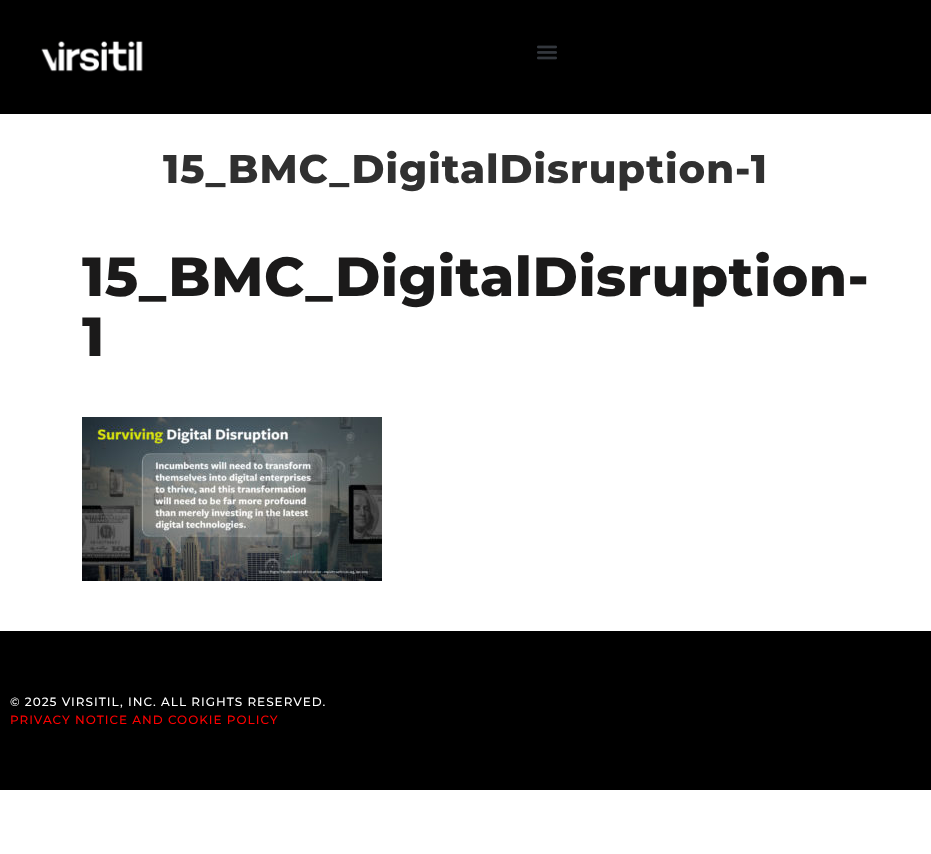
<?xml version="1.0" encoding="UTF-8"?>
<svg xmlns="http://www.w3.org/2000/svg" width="931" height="854">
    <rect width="100%" height="100%" fill="#FFFFFF"/>
    <rect x="0" y="0" width="931" height="114" fill="#000000"/>
    <image x="41" y="40" width="102" height="32" href="img_01.png"/>
    <image x="537" y="45" width="20" height="15" href="img_02.png"/>
    <text x="163" y="183" font-family="Montserrat" font-size="40" font-weight="800" letter-spacing="1" fill="#303030">15_BMC_DigitalDisruption-1</text>
    <text font-family="Montserrat" font-size="55" font-weight="800" letter-spacing="0.5" fill="#1B1A1A">
        <tspan x="82" y="296">15_BMC_DigitalDisruption-</tspan>
        <tspan x="82" y="356">1</tspan>
    </text>
    <image x="82" y="417" width="300" height="164" href="img_03.png"/>
    <rect x="0" y="631" width="931" height="159" fill="#000000"/>
    <text x="10" y="706" font-family="Montserrat" font-size="12" font-weight="500" letter-spacing="1" fill="#FFFFFF">© 2025 VIRSITIL, INC. ALL RIGHTS RESERVED.</text>
    <text x="10" y="724" font-family="Montserrat" font-size="12" font-weight="500" letter-spacing="1" fill="#FF0000">PRIVACY NOTICE AND COOKIE POLICY</text>
</svg>
